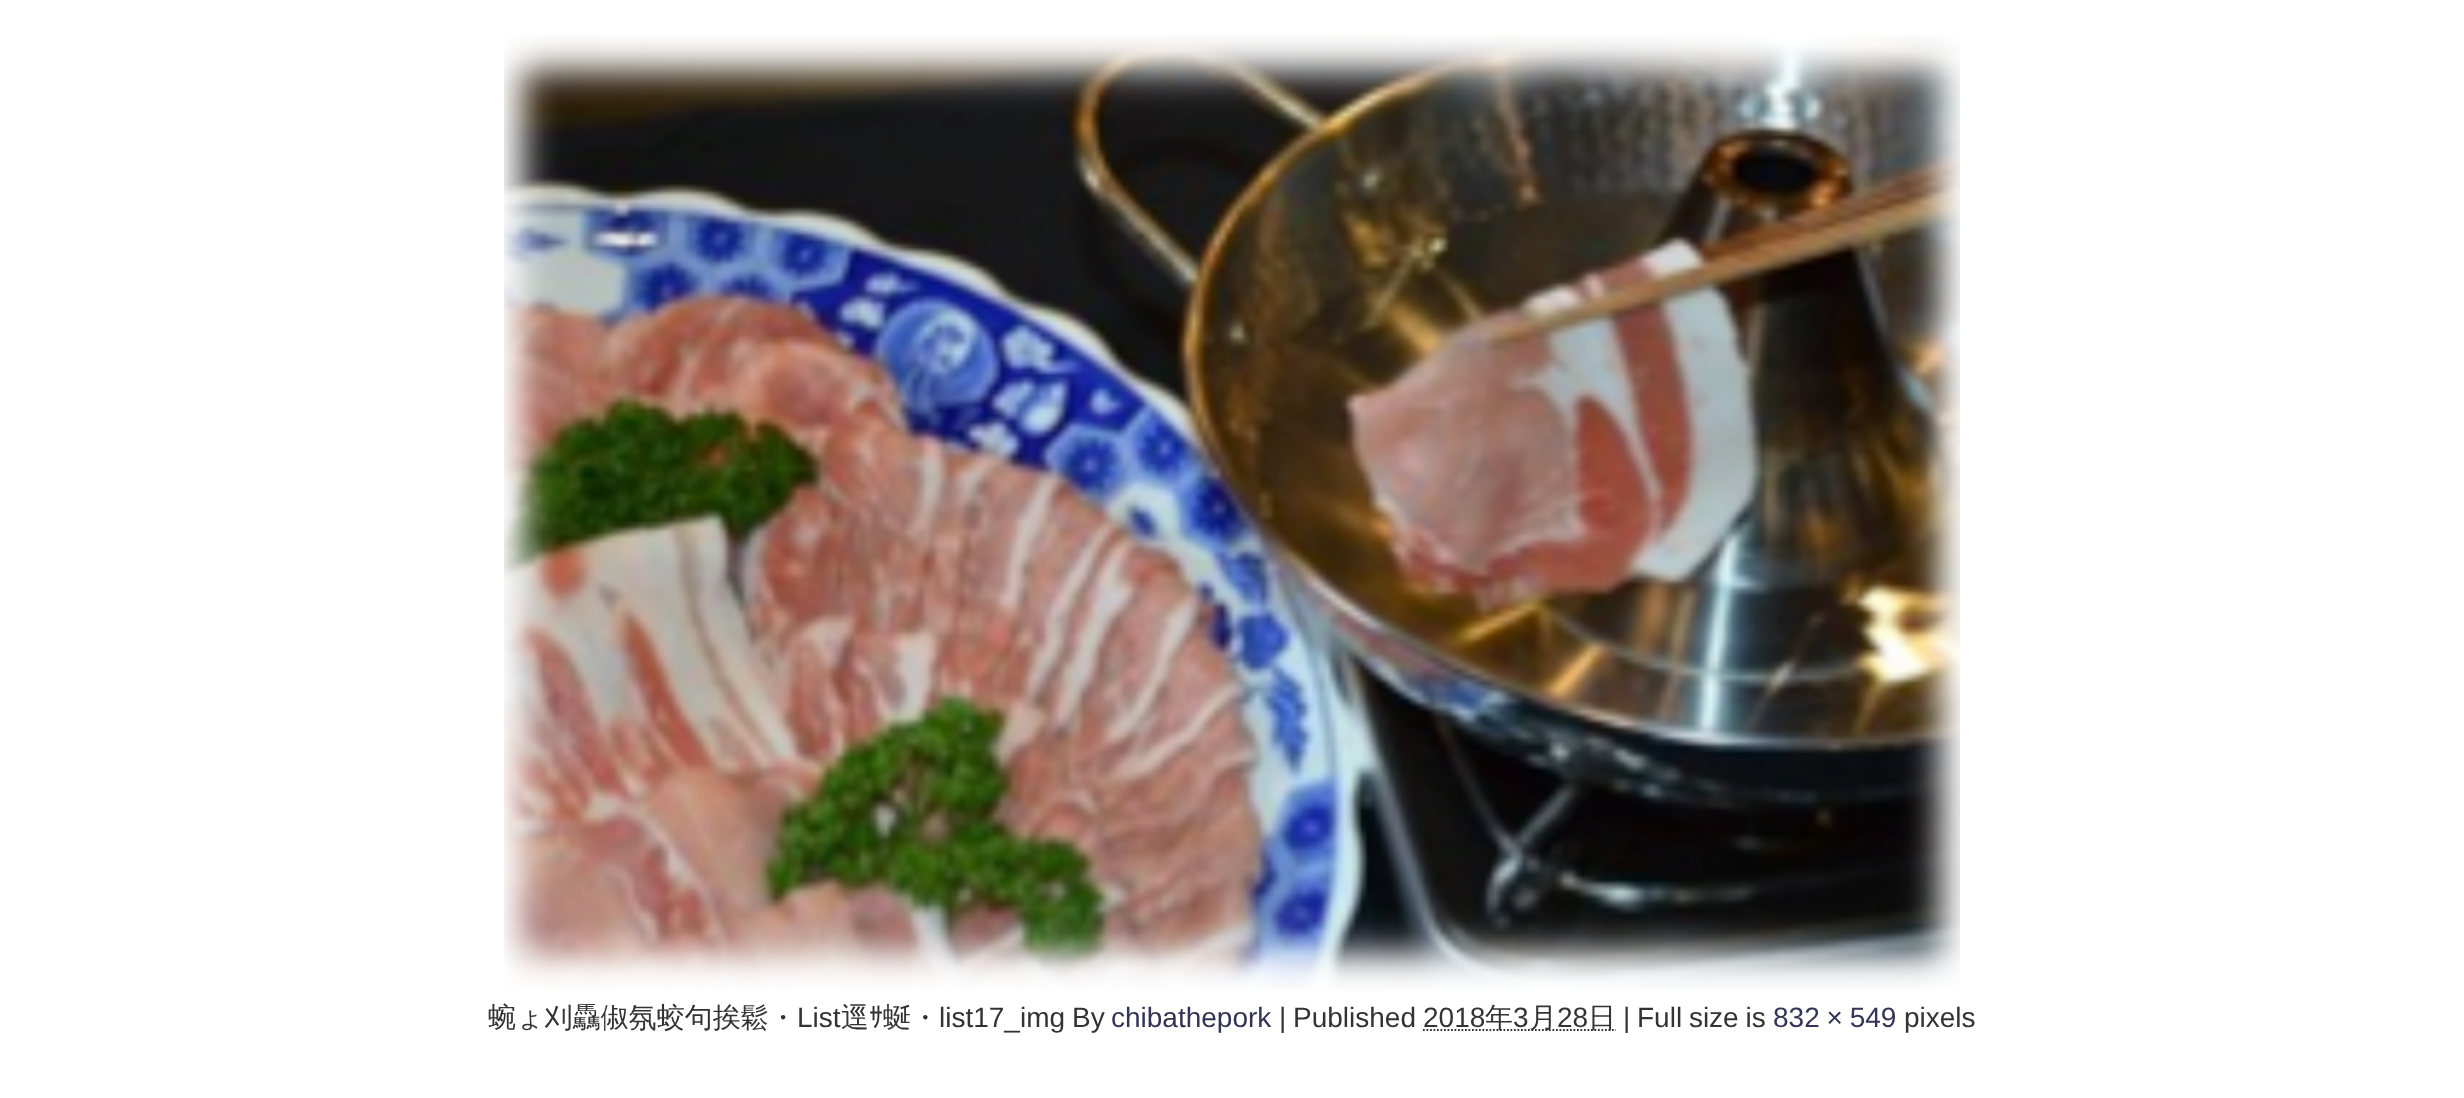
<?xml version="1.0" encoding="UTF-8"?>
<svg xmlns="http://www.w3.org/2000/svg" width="2464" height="1098">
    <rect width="100%" height="100%" fill="#FFFFFF"/>
    <image x="504" y="35" width="1456" height="955" href="img_01.png"/>
    <text x="488" y="1027" font-family="WenQuanYi Zen Hei" font-size="28" font-weight="500" fill="#333333">蜿ょ刈驫俶氛蛟句挨鬆・</text>
    <text x="797" y="1027" font-family="Liberation Sans" font-size="28" fill="#333333">List</text>
    <text x="841" y="1027" font-family="WenQuanYi Zen Hei" font-size="28" font-weight="500" fill="#333333">逕</text>
    <text x="869" y="1027" font-family="IPAPGothic" font-size="28" fill="#333333">ｻ</text>
    <text x="883" y="1027" font-family="WenQuanYi Zen Hei" font-size="28" font-weight="500" fill="#333333">蜒・</text>
    <text x="939" y="1027" font-family="Liberation Sans" font-size="28" fill="#333333">list17_img</text>
    <text x="1072" y="1027" font-family="Liberation Sans" font-size="28" fill="#333333">By</text>
    <text x="1111" y="1027" font-family="Liberation Sans" font-size="28" fill="#333355">chibathepork</text>
    <text x="1279" y="1027" font-family="Liberation Sans" font-size="28" fill="#333333">|</text>
    <text x="1293" y="1027" font-family="Liberation Sans" font-size="28" fill="#333333">Published</text>
    <text x="1423" y="1027" font-family="Liberation Sans" font-size="28" fill="#333333">2018</text>
    <path d="M 1423 1030 H 1616" fill="none" stroke="#333333" stroke-width="1.8" stroke-dasharray="1.75 1.75"/>
    <text x="1485" y="1027" font-family="WenQuanYi Zen Hei" font-size="28" font-weight="500" fill="#333333">年</text>
    <text x="1513" y="1027" font-family="Liberation Sans" font-size="28" fill="#333333">3</text>
    <text x="1529" y="1027" font-family="WenQuanYi Zen Hei" font-size="28" font-weight="500" fill="#333333">月</text>
    <text x="1557" y="1027" font-family="Liberation Sans" font-size="28" fill="#333333">28</text>
    <text x="1588" y="1027" font-family="WenQuanYi Zen Hei" font-size="28" font-weight="500" fill="#333333">日</text>
    <text x="1623" y="1027" font-family="Liberation Sans" font-size="28" fill="#333333">|</text>
    <text x="1637" y="1027" word-spacing="-1" font-family="Liberation Sans" font-size="28" fill="#333333">Full size is</text>
    <text x="1773" y="1027" word-spacing="-1" font-family="Liberation Sans" font-size="28" fill="#333355">832 × 549</text>
    <text x="1904" y="1027" font-family="Liberation Sans" font-size="28" fill="#333333">pixels</text>
</svg>
